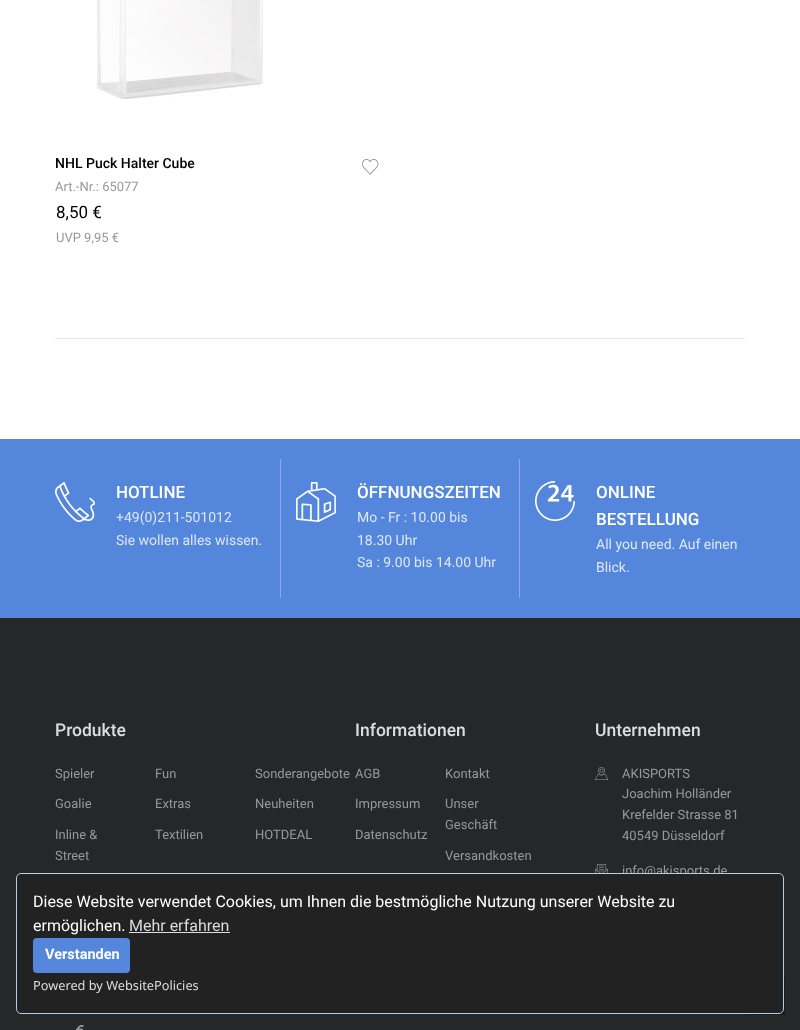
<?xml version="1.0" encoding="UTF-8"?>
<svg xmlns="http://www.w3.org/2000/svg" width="800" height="1030">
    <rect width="100%" height="100%" fill="#FFFFFF"/>
    <image x="97" y="0" width="166" height="99" href="img_01.png"/>
    <text x="55" y="168" font-family="Roboto" font-size="14" font-weight="500" fill="#000000">NHL Puck Halter Cube</text>
    <text x="55" y="191" font-family="Roboto" font-size="13" fill="#999999">Art.-Nr.: 65077</text>
    <text x="56" y="218" font-family="Roboto" font-size="17" fill="#000000">8,50 €</text>
    <text x="56" y="242" font-family="Roboto" font-size="13" fill="#999999">UVP 9,95 €</text>
    <image x="362" y="159" width="17" height="16" href="img_02.png"/>
    <rect x="55" y="338" width="690" height="1" fill="#E6E6E6"/>
    <rect x="0" y="439" width="800" height="179" fill="#5487DB"/>
    <image x="55" y="482" width="40" height="40" href="img_03.png"/>
    <text x="116" y="498" font-family="Roboto" font-size="17" font-weight="500" fill="#FFFFFF">HOTLINE</text>
    <text font-family="Roboto" font-size="14" fill="#DDE7F8">
        <tspan x="116" y="522">+49(0)211-501012</tspan>
        <tspan x="116" y="545">Sie wollen alles wissen.</tspan>
    </text>
    <rect x="519" y="459" width="1" height="139" fill="#87ABE6"/>
    <rect x="280" y="459" width="1" height="139" fill="#87ABE6"/>
    <image x="296" y="482" width="40" height="40" href="img_04.png"/>
    <text x="357" y="498" font-family="Roboto" font-size="17" font-weight="500" fill="#FFFFFF">ÖFFNUNGSZEITEN</text>
    <text font-family="Roboto" font-size="14" fill="#DDE7F8">
        <tspan x="357" y="522">Mo - Fr : 10.00 bis</tspan>
        <tspan x="357" y="545">18.30 Uhr</tspan>
        <tspan x="357" y="567">Sa : 9.00 bis 14.00 Uhr</tspan>
    </text>
    <image x="535" y="481" width="40" height="40" href="img_05.png"/>
    <text font-family="Roboto" font-size="17" font-weight="500" fill="#FFFFFF">
        <tspan x="596" y="498">ONLINE</tspan>
        <tspan x="596" y="525">BESTELLUNG</tspan>
    </text>
    <text font-family="Roboto" font-size="14" fill="#DDE7F8">
        <tspan x="596" y="549">All you need. Auf einen</tspan>
        <tspan x="596" y="572">Blick.</tspan>
    </text>
    <rect x="0" y="618" width="800" height="412" fill="#262729"/>
    <text x="55" y="736" font-family="Roboto" font-size="17.5" font-weight="500" fill="#DDDDDD">Produkte</text>
    <text x="55" y="778" font-family="Roboto" font-size="13" fill="#999999">Spieler</text>
    <text x="55" y="808" font-family="Roboto" font-size="13" fill="#999999">Goalie</text>
    <text font-family="Roboto" font-size="13" fill="#999999">
        <tspan x="55" y="839">Inline &amp;</tspan>
        <tspan x="55" y="860">Street</tspan>
    </text>
    <text x="155" y="778" font-family="Roboto" font-size="13" fill="#999999">Fun</text>
    <text x="155" y="808" font-family="Roboto" font-size="13" fill="#999999">Extras</text>
    <text x="155" y="839" font-family="Roboto" font-size="13" fill="#999999">Textilien</text>
    <text x="255" y="778" font-family="Roboto" font-size="13" fill="#999999">Sonderangebote</text>
    <text x="255" y="808" font-family="Roboto" font-size="13" fill="#999999">Neuheiten</text>
    <text x="255" y="839" font-family="Roboto" font-size="13" fill="#999999">HOTDEAL</text>
    <text x="355" y="736" font-family="Roboto" font-size="17.5" font-weight="500" fill="#DDDDDD">Informationen</text>
    <text x="355" y="778" font-family="Roboto" font-size="13" fill="#999999">AGB</text>
    <text x="355" y="808" font-family="Roboto" font-size="13" fill="#999999">Impressum</text>
    <text x="355" y="839" font-family="Roboto" font-size="13" fill="#999999">Datenschutz</text>
    <text x="445" y="778" font-family="Roboto" font-size="13" fill="#999999">Kontakt</text>
    <text font-family="Roboto" font-size="13" fill="#999999">
        <tspan x="445" y="808">Unser</tspan>
        <tspan x="445" y="829">Geschäft</tspan>
    </text>
    <text x="445" y="860" font-family="Roboto" font-size="13" fill="#999999">Versandkosten</text>
    <text x="595" y="736" font-family="Roboto" font-size="17.5" font-weight="500" fill="#DDDDDD">Unternehmen</text>
    <image x="595" y="767" width="13" height="13" href="img_06.png"/>
    <text font-family="Roboto" font-size="13" fill="#999999">
        <tspan x="622" y="778">AKISPORTS</tspan>
        <tspan x="622" y="798">Joachim Holländer</tspan>
        <tspan x="622" y="819">Krefelder Strasse 81</tspan>
        <tspan x="622" y="840">40549 Düsseldorf</tspan>
    </text>
    <image x="595" y="864" width="13" height="9" href="img_07.png"/>
    <text x="622" y="875" font-family="Roboto" font-size="13" fill="#999999">info@akisports.de</text>
    <image x="76" y="1025" width="8" height="5" href="img_08.png"/>
    <rect x="745" y="975" width="40" height="40" rx="3" fill="#1B1B1D"/>
    <rect x="16.5" y="873.5" width="767" height="140" rx="4.5" fill="#222222" stroke="#B3D0E4"/>
    <text font-family="Roboto" font-size="16" fill="#FFFFFF">
        <tspan x="33" y="907">Diese Website verwendet Cookies, um Ihnen die bestmögliche Nutzung unserer Website zu</tspan>
        <tspan x="33" y="931">ermöglichen.</tspan>
    </text>
    <text x="129" y="931" font-family="Roboto" font-size="16" fill="#DDDDDD">Mehr erfahren</text>
    <rect x="129" y="932" width="101" height="1" fill="#DEDEDE"/>
    <rect x="33" y="938" width="97" height="35" rx="4" fill="#5487DB"/>
    <text x="45" y="959" font-family="Roboto" font-size="14.5" font-weight="700" fill="#FFFFFF">Verstanden</text>
    <text x="33" y="990" font-family="Noto Sans" font-size="12.75" fill="#DDDDDD">Powered by WebsitePolicies</text>
</svg>
